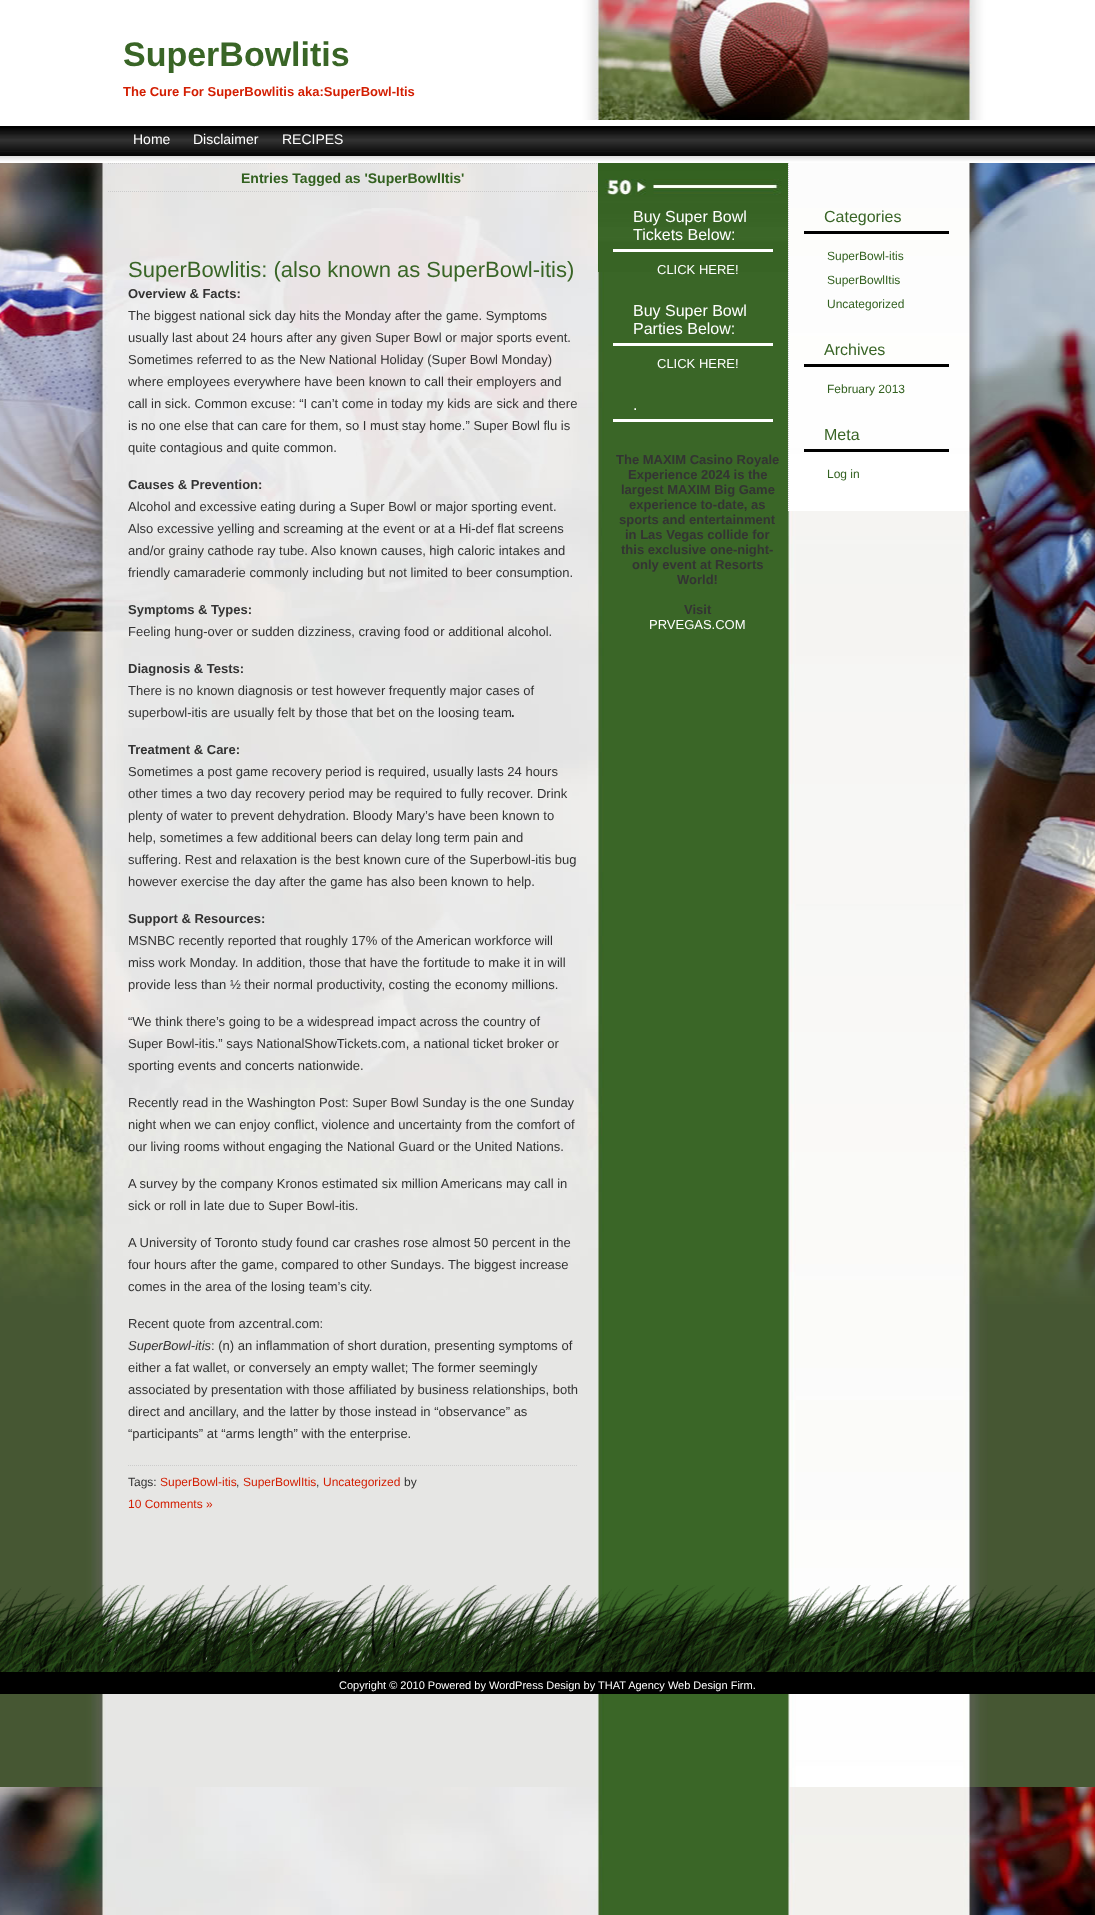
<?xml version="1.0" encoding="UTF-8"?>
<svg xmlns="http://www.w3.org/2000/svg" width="1095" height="1915">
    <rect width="100%" height="100%" fill="#FFFFFF"/>
    <image x="0" y="163" width="1095" height="1752" href="img_01.png"/>
    <image x="0" y="0" width="1095" height="120" href="img_02.png"/>
    <text x="123" y="66" font-family="Liberation Sans" font-size="34" font-weight="700" fill="#396526">SuperBowlitis</text>
    <text x="123" y="96" font-family="Liberation Sans" font-size="13" font-weight="700" fill="#D31E02">The Cure For SuperBowlitis aka:SuperBowl-Itis</text>
    <rect x="0" y="126" width="1095" height="2" fill="#000000"/>
    <image x="0" y="128" width="1095" height="35" href="img_03.png"/>
    <text x="133" y="144" font-family="Liberation Sans" font-size="14" fill="#FFFFFF">Home</text>
    <text x="193" y="144" font-family="Liberation Sans" font-size="14" fill="#FFFFFF">Disclaimer</text>
    <text x="282" y="144" font-family="Liberation Sans" font-size="14" fill="#FFFFFF">RECIPES</text>
    <path d="M 108 163.5 H 598" fill="none" stroke="#CCCCCC" stroke-dasharray="1 1"/>
    <path d="M 108 191.5 H 598" fill="none" stroke="#CCCCCC" stroke-dasharray="1 1"/>
    <text x="241" y="183" font-family="Liberation Sans" font-size="14" font-weight="700" fill="#336120">Entries Tagged as 'SuperBowlItis'</text>
    <text x="128" y="277" font-family="Liberation Sans" font-size="22" fill="#396526">SuperBowlitis: (also known as SuperBowl-itis)</text>
    <text x="128" y="298" font-family="Liberation Sans" font-size="13" font-weight="700" fill="#333333">Overview &amp; Facts:</text>
    <text font-family="Liberation Sans" font-size="13" fill="#333333">
        <tspan x="128" y="320">The biggest national sick day hits the Monday after the game. Symptoms</tspan>
        <tspan x="128" y="342">usually last about 24 hours after any given Super Bowl or major sports event.</tspan>
        <tspan x="128" y="364">Sometimes referred to as the New National Holiday (Super Bowl Monday)</tspan>
        <tspan x="128" y="386">where employees everywhere have been known to call their employers and</tspan>
        <tspan x="128" y="408">call in sick. Common excuse: “I can’t come in today my kids are sick and there</tspan>
        <tspan x="128" y="430">is no one else that can care for them, so I must stay home.” Super Bowl flu is</tspan>
        <tspan x="128" y="452">quite contagious and quite common.</tspan>
    </text>
    <text x="128" y="489" font-family="Liberation Sans" font-size="13" font-weight="700" fill="#333333">Causes &amp; Prevention:</text>
    <text font-family="Liberation Sans" font-size="13" fill="#333333">
        <tspan x="128" y="511">Alcohol and excessive eating during a Super Bowl or major sporting event.</tspan>
        <tspan x="128" y="533">Also excessive yelling and screaming at the event or at a Hi-def flat screens</tspan>
        <tspan x="128" y="555">and/or grainy cathode ray tube. Also known causes, high caloric intakes and</tspan>
        <tspan x="128" y="577">friendly camaraderie commonly including but not limited to beer consumption.</tspan>
    </text>
    <text x="128" y="614" font-family="Liberation Sans" font-size="13" font-weight="700" fill="#333333">Symptoms &amp; Types:</text>
    <text x="128" y="636" font-family="Liberation Sans" font-size="13" fill="#333333">Feeling hung-over or sudden dizziness, craving food or additional alcohol.</text>
    <text x="128" y="673" font-family="Liberation Sans" font-size="13" font-weight="700" fill="#333333">Diagnosis &amp; Tests:</text>
    <text font-family="Liberation Sans" font-size="13" fill="#333333">
        <tspan x="128" y="695">There is no known diagnosis or test however frequently major cases of</tspan>
        <tspan x="128" y="717">superbowl-itis are usually felt by those that bet on the loosing team</tspan>
    </text>
    <text x="511" y="717" font-family="Liberation Sans" font-size="13" font-weight="700" fill="#333333">.</text>
    <text x="128" y="754" font-family="Liberation Sans" font-size="13" font-weight="700" fill="#333333">Treatment &amp; Care:</text>
    <text font-family="Liberation Sans" font-size="13" fill="#333333">
        <tspan x="128" y="776">Sometimes a post game recovery period is required, usually lasts 24 hours</tspan>
        <tspan x="128" y="798">other times a two day recovery period may be required to fully recover. Drink</tspan>
        <tspan x="128" y="820">plenty of water to prevent dehydration. Bloody Mary’s have been known to</tspan>
        <tspan x="128" y="842">help, sometimes a few additional beers can delay long term pain and</tspan>
        <tspan x="128" y="864">suffering. Rest and relaxation is the best known cure of the Superbowl-itis bug</tspan>
        <tspan x="128" y="886">however exercise the day after the game has also been known to help.</tspan>
    </text>
    <text x="128" y="923" font-family="Liberation Sans" font-size="13" font-weight="700" fill="#333333">Support &amp; Resources:</text>
    <text font-family="Liberation Sans" font-size="13" fill="#333333">
        <tspan x="128" y="945">MSNBC recently reported that roughly 17% of the American workforce will</tspan>
        <tspan x="128" y="967">miss work Monday. In addition, those that have the fortitude to make it in will</tspan>
        <tspan x="128" y="989">provide less than ½ their normal productivity, costing the economy millions.</tspan>
    </text>
    <text font-family="Liberation Sans" font-size="13" fill="#333333">
        <tspan x="128" y="1026">“We think there’s going to be a widespread impact across the country of</tspan>
        <tspan x="128" y="1048">Super Bowl-itis.” says NationalShowTickets.com, a national ticket broker or</tspan>
        <tspan x="128" y="1070">sporting events and concerts nationwide.</tspan>
    </text>
    <text font-family="Liberation Sans" font-size="13" fill="#333333">
        <tspan x="128" y="1107">Recently read in the Washington Post: Super Bowl Sunday is the one Sunday</tspan>
        <tspan x="128" y="1129">night when we can enjoy conflict, violence and uncertainty from the comfort of</tspan>
        <tspan x="128" y="1151">our living rooms without engaging the National Guard or the United Nations.</tspan>
    </text>
    <text font-family="Liberation Sans" font-size="13" fill="#333333">
        <tspan x="128" y="1188">A survey by the company Kronos estimated six million Americans may call in</tspan>
        <tspan x="128" y="1210">sick or roll in late due to Super Bowl-itis.</tspan>
    </text>
    <text font-family="Liberation Sans" font-size="13" fill="#333333">
        <tspan x="128" y="1247">A University of Toronto study found car crashes rose almost 50 percent in the</tspan>
        <tspan x="128" y="1269">four hours after the game, compared to other Sundays. The biggest increase</tspan>
        <tspan x="128" y="1291">comes in the area of the losing team’s city.</tspan>
    </text>
    <text x="128" y="1328" font-family="Liberation Sans" font-size="13" fill="#333333">Recent quote from azcentral.com:</text>
    <text x="128" y="1350" font-family="Liberation Sans" font-size="13" font-style="italic" fill="#333333">SuperBowl-itis</text>
    <text x="211" y="1350" font-family="Liberation Sans" font-size="13" fill="#333333">: (n) an inflammation of short duration, presenting symptoms of</text>
    <text font-family="Liberation Sans" font-size="13" fill="#333333">
        <tspan x="128" y="1372">either a fat wallet, or conversely an empty wallet; The former seemingly</tspan>
        <tspan x="128" y="1394">associated by presentation with those affiliated by business relationships, both</tspan>
        <tspan x="128" y="1416">direct and ancillary, and the latter by those instead in “observance” as</tspan>
        <tspan x="128" y="1438">“participants” at “arms length” with the enterprise.</tspan>
    </text>
    <path d="M 128 1465.5 H 578" fill="none" stroke="#CCCCCC" stroke-dasharray="1 1"/>
    <text x="128" y="1486" font-family="Liberation Sans" font-size="12" fill="#333333">Tags:</text>
    <text x="160" y="1486" font-family="Liberation Sans" font-size="12" fill="#D31E02">SuperBowl-itis</text>
    <text x="236" y="1486" font-family="Liberation Sans" font-size="12" fill="#333333">,</text>
    <text x="243" y="1486" font-family="Liberation Sans" font-size="12" fill="#D31E02">SuperBowlItis</text>
    <text x="316" y="1486" font-family="Liberation Sans" font-size="12" fill="#333333">,</text>
    <text x="323" y="1486" font-family="Liberation Sans" font-size="12" fill="#D31E02">Uncategorized</text>
    <text x="404" y="1486" font-family="Liberation Sans" font-size="12" fill="#333333">by</text>
    <text x="128" y="1508" font-family="Liberation Sans" font-size="12" fill="#D31E02">10 Comments »</text>
    <image x="598" y="163" width="190" height="109" href="img_04.png"/>
    <rect x="613" y="249" width="160" height="3" fill="#FFFFFF"/>
    <text font-family="Liberation Sans" font-size="16" fill="#FFFFFF">
        <tspan x="633" y="222">Buy Super Bowl</tspan>
        <tspan x="633" y="240">Tickets Below:</tspan>
    </text>
    <text x="657" y="274" font-family="Liberation Sans" font-size="13" fill="#FFFFFF">CLICK HERE!</text>
    <rect x="613" y="343" width="160" height="3" fill="#FFFFFF"/>
    <text font-family="Liberation Sans" font-size="16" fill="#FFFFFF">
        <tspan x="633" y="316">Buy Super Bowl</tspan>
        <tspan x="633" y="334">Parties Below:</tspan>
    </text>
    <text x="657" y="368" font-family="Liberation Sans" font-size="13" fill="#FFFFFF">CLICK HERE!</text>
    <rect x="613" y="419" width="160" height="3" fill="#FFFFFF"/>
    <text x="633" y="410" font-family="Liberation Sans" font-size="16" fill="#FFFFFF">.</text>
    <text x="616" y="464" font-family="Liberation Sans" font-size="13" font-weight="700" fill="#333333">The MAXIM Casino Royale</text>
    <text x="628" y="479" font-family="Liberation Sans" font-size="13" font-weight="700" fill="#333333">Experience 2024 is the</text>
    <text x="621" y="494" font-family="Liberation Sans" font-size="13" font-weight="700" fill="#333333">largest MAXIM Big Game</text>
    <text x="629" y="509" font-family="Liberation Sans" font-size="13" font-weight="700" fill="#333333">experience to-date, as</text>
    <text x="619" y="524" font-family="Liberation Sans" font-size="13" font-weight="700" fill="#333333">sports and entertainment</text>
    <text x="625" y="539" font-family="Liberation Sans" font-size="13" font-weight="700" fill="#333333">in Las Vegas collide for</text>
    <text x="621" y="554" font-family="Liberation Sans" font-size="13" font-weight="700" fill="#333333">this exclusive one-night-</text>
    <text x="632" y="569" font-family="Liberation Sans" font-size="13" font-weight="700" fill="#333333">only event at Resorts</text>
    <text x="677" y="584" font-family="Liberation Sans" font-size="13" font-weight="700" fill="#333333">World!</text>
    <text x="684" y="614" font-family="Liberation Sans" font-size="13" font-weight="700" fill="#333333">Visit</text>
    <text x="649" y="629" font-family="Liberation Sans" font-size="13" fill="#FFFFFF">PRVEGAS.COM</text>
    <image x="788" y="163" width="181" height="348" href="img_05.png"/>
    <path d="M 788.5 163 V 511" fill="none" stroke="#CCCCCC" stroke-dasharray="1 1"/>
    <rect x="804" y="231" width="145" height="3" fill="#000000"/>
    <text x="824" y="222" font-family="Liberation Sans" font-size="16" fill="#396526">Categories</text>
    <text x="827" y="260" font-family="Liberation Sans" font-size="12" fill="#336120">SuperBowl-itis</text>
    <text x="827" y="284" font-family="Liberation Sans" font-size="12" fill="#336120">SuperBowlItis</text>
    <text x="827" y="308" font-family="Liberation Sans" font-size="12" fill="#336120">Uncategorized</text>
    <rect x="804" y="364" width="145" height="3" fill="#000000"/>
    <text x="824" y="355" font-family="Liberation Sans" font-size="16" fill="#396526">Archives</text>
    <text x="827" y="393" font-family="Liberation Sans" font-size="12" fill="#336120">February 2013</text>
    <rect x="804" y="449" width="145" height="3" fill="#000000"/>
    <text x="824" y="440" font-family="Liberation Sans" font-size="16" fill="#396526">Meta</text>
    <text x="827" y="478" font-family="Liberation Sans" font-size="12" fill="#336120">Log in</text>
    <image x="0" y="1585" width="1095" height="109" href="img_06.png"/>
    <text x="339" y="1689" font-family="Liberation Sans" font-size="11" fill="#FFFFFF">Copyright © 2010 Powered by WordPress Design by THAT Agency Web Design Firm.</text>
</svg>
